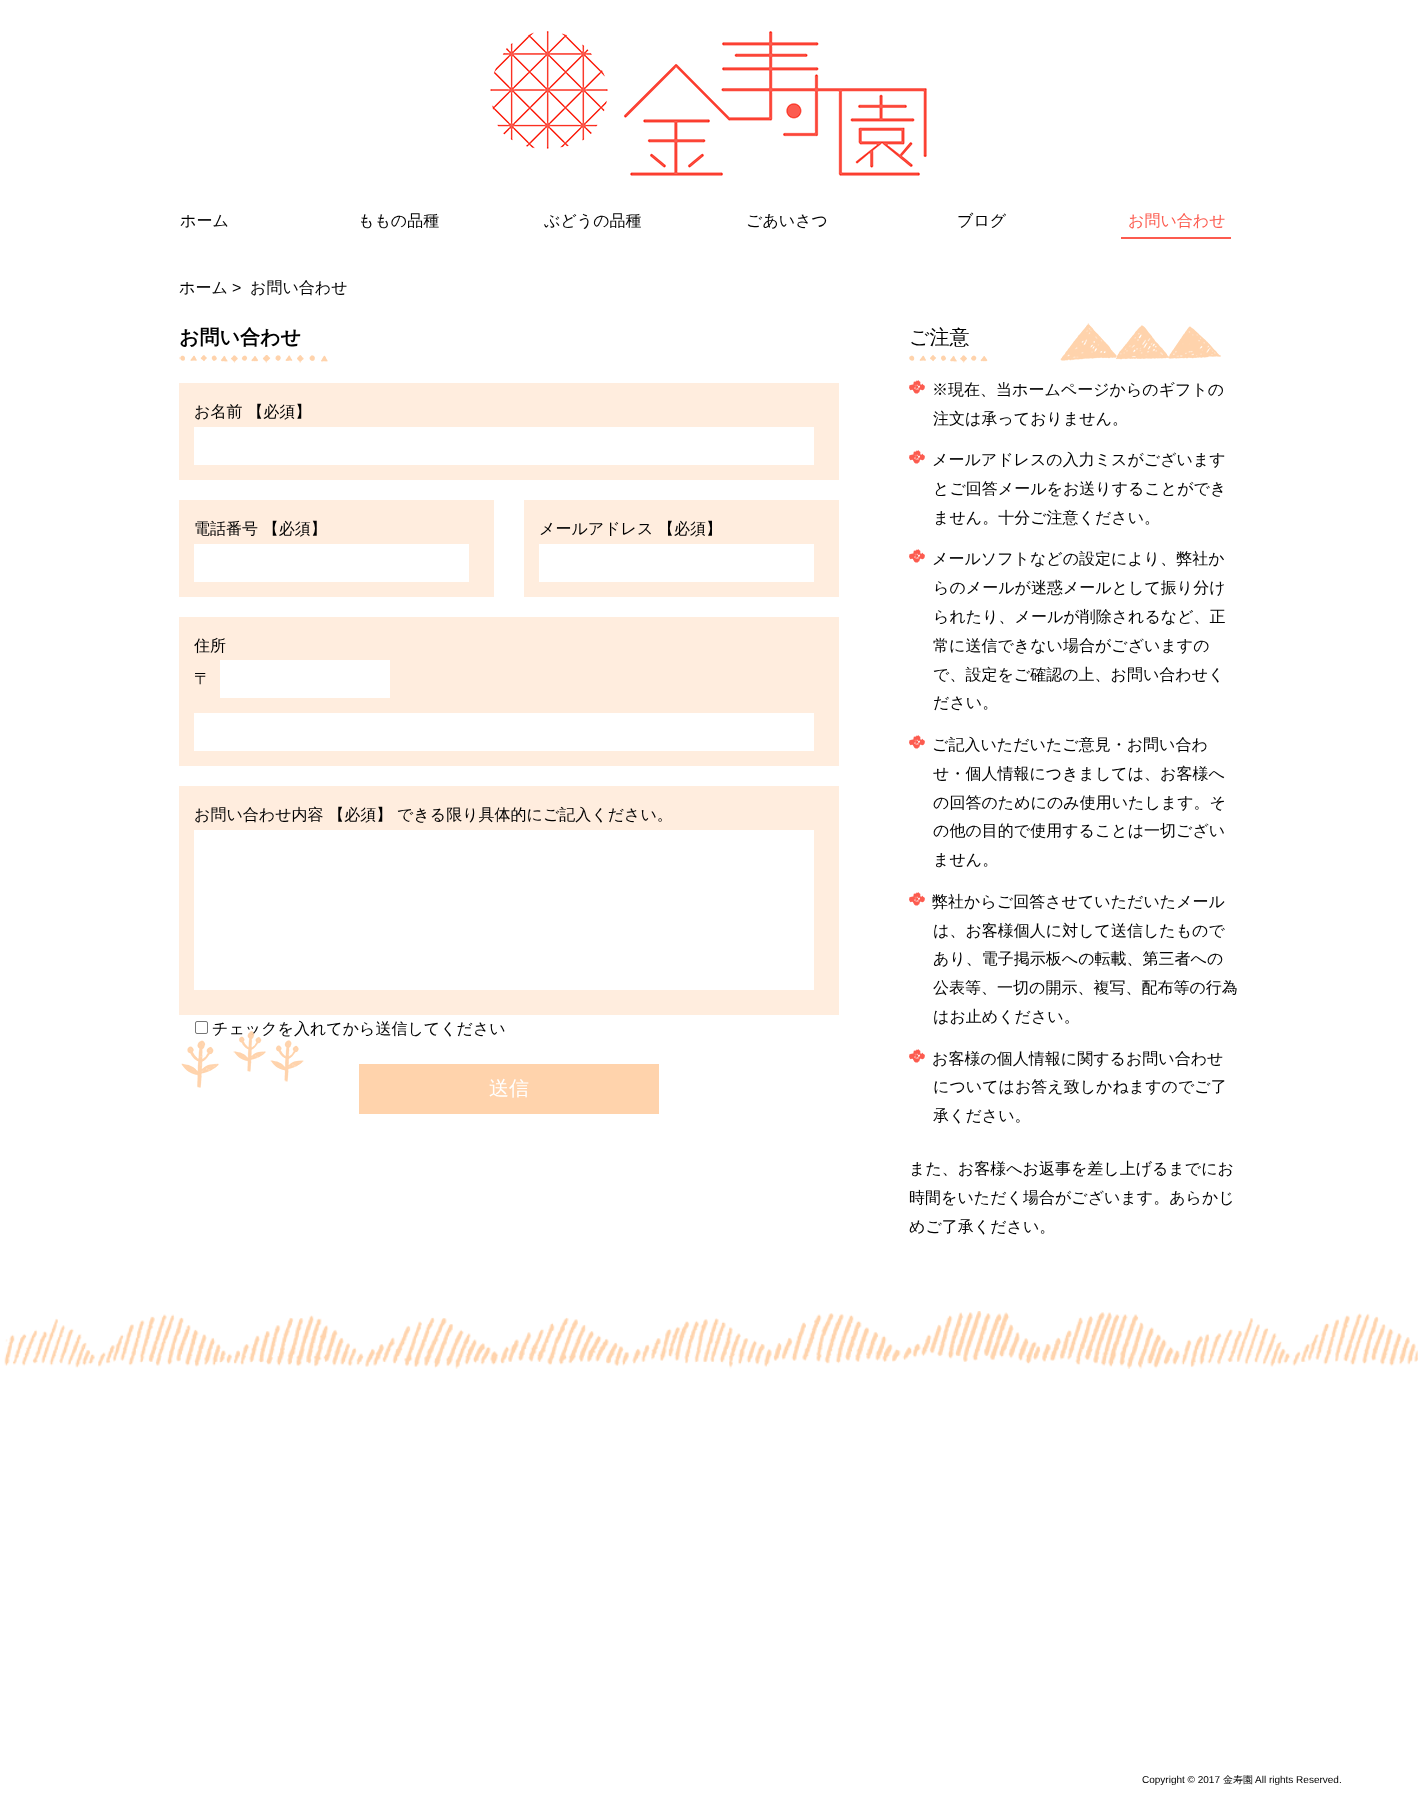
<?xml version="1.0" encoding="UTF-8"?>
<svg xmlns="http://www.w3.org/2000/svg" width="1418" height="1805">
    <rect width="100%" height="100%" fill="#FFFFFF"/>
    <image x="490" y="31" width="437" height="145" href="img_01.png"/>
    <text x="180" y="226" font-family="WenQuanYi Zen Hei" font-size="16" font-weight="500" fill="#000000">ホーム</text>
    <text x="358" y="226" font-family="WenQuanYi Zen Hei" font-size="16" font-weight="500" fill="#000000">ももの品種</text>
    <text x="544" y="226" font-family="WenQuanYi Zen Hei" font-size="16" font-weight="500" fill="#000000">ぶどうの品種</text>
    <text x="746" y="226" font-family="WenQuanYi Zen Hei" font-size="16" font-weight="500" fill="#000000">ごあいさつ</text>
    <text x="957" y="226" font-family="WenQuanYi Zen Hei" font-size="16" font-weight="500" fill="#000000">ブログ</text>
    <text x="1128" y="226" font-family="WenQuanYi Zen Hei" font-size="16" font-weight="500" fill="#FC5B4F">お問い合わせ</text>
    <rect x="1121" y="237" width="110" height="2" fill="#FC5B4F"/>
    <text x="179" y="293" font-family="WenQuanYi Zen Hei" font-size="16" font-weight="500" fill="#000000">ホーム</text>
    <text x="232" y="293" font-family="Liberation Sans" font-size="16" fill="#000000">&gt;</text>
    <text x="250" y="293" font-family="WenQuanYi Zen Hei" font-size="16" font-weight="500" fill="#000000">お問い合わせ</text>
    <text x="179" y="344" font-family="WenQuanYi Zen Hei" font-size="20" font-weight="700" fill="#000000">お問い合わせ</text>
    <image x="1060" y="323" width="161" height="38" href="img_02.png"/>
    <rect x="179" y="383" width="660" height="97" fill="#FFEDDE"/>
    <text x="194" y="417" font-family="WenQuanYi Zen Hei" font-size="16" font-weight="500" fill="#000000">お名前 【必須】</text>
    <rect x="194" y="427" width="620" height="38" fill="#FFFFFF"/>
    <rect x="179" y="500" width="315" height="97" fill="#FFEDDE"/>
    <text x="194" y="534" font-family="WenQuanYi Zen Hei" font-size="16" font-weight="500" fill="#000000">電話番号 【必須】</text>
    <rect x="194" y="544" width="275" height="38" fill="#FFFFFF"/>
    <rect x="524" y="500" width="315" height="97" fill="#FFEDDE"/>
    <text x="539" y="534" font-family="WenQuanYi Zen Hei" font-size="16" font-weight="500" fill="#000000">メールアドレス 【必須】</text>
    <rect x="539" y="544" width="275" height="38" fill="#FFFFFF"/>
    <rect x="179" y="617" width="660" height="149" fill="#FFEDDE"/>
    <text x="194" y="651" font-family="WenQuanYi Zen Hei" font-size="16" font-weight="500" fill="#000000">住所</text>
    <text x="194" y="684" font-family="WenQuanYi Zen Hei" font-size="16" font-weight="500" fill="#000000">〒</text>
    <rect x="220" y="660" width="170" height="38" fill="#FFFFFF"/>
    <rect x="194" y="713" width="620" height="38" fill="#FFFFFF"/>
    <rect x="179" y="786" width="660" height="229" fill="#FFEDDE"/>
    <text x="194" y="820" font-family="WenQuanYi Zen Hei" font-size="16" font-weight="500" fill="#000000">お問い合わせ内容 【必須】 できる限り具体的にご記入ください。</text>
    <rect x="194" y="830" width="620" height="160" fill="#FFFFFF"/>
    <text x="212" y="1034" font-family="WenQuanYi Zen Hei" font-size="16" font-weight="500" fill="#000000">チェックを入れてから送信してください</text>
    <image x="181" y="1031" width="123" height="57" href="img_05.png"/>
    <rect x="195.5" y="1021.5" width="12" height="12" rx="1.5" fill="none" stroke="#767676"/>
    <rect x="359" y="1064" width="300" height="50" fill="#FFD3AC"/>
    <text x="489" y="1095" font-family="WenQuanYi Zen Hei" font-size="20" font-weight="500" fill="#FFFFFF">送信</text>
    <text x="909" y="344" font-family="WenQuanYi Zen Hei" font-size="20" font-weight="500" fill="#000000">ご注意</text>
    <image x="909" y="355" width="79" height="8" href="img_03.png"/>
    <image x="909" y="380" width="16" height="14" href="img_04.png"/>
    <text x="932" y="395" font-family="WenQuanYi Zen Hei" font-size="16" font-weight="500" fill="#000000">※現在、当ホームページからのギフトの</text>
    <text x="933" y="424" font-family="WenQuanYi Zen Hei" font-size="16" font-weight="500" fill="#000000">注文は承っておりません。</text>
    <image x="909" y="450" width="16" height="14" href="img_04.png"/>
    <text x="932" y="465" font-family="WenQuanYi Zen Hei" font-size="16" font-weight="500" fill="#000000">メールアドレスの入力ミスがございます</text>
    <text font-family="WenQuanYi Zen Hei" font-size="16" font-weight="500" fill="#000000">
        <tspan x="933" y="494">とご回答メールをお送りすることができ</tspan>
        <tspan x="933" y="523">ません。十分ご注意ください。</tspan>
    </text>
    <image x="909" y="549" width="16" height="14" href="img_04.png"/>
    <text x="932" y="564" font-family="WenQuanYi Zen Hei" font-size="16" font-weight="500" fill="#000000">メールソフトなどの設定により、弊社か</text>
    <text font-family="WenQuanYi Zen Hei" font-size="16" font-weight="500" fill="#000000">
        <tspan x="933" y="593">らのメールが迷惑メールとして振り分け</tspan>
        <tspan x="933" y="622">られたり、メールが削除されるなど、正</tspan>
        <tspan x="933" y="651">常に送信できない場合がございますの</tspan>
        <tspan x="933" y="680">で、設定をご確認の上、お問い合わせく</tspan>
        <tspan x="933" y="708">ださい。</tspan>
    </text>
    <image x="909" y="735" width="16" height="14" href="img_04.png"/>
    <text x="932" y="750" font-family="WenQuanYi Zen Hei" font-size="16" font-weight="500" fill="#000000">ご記入いただいたご意見・お問い合わ</text>
    <text font-family="WenQuanYi Zen Hei" font-size="16" font-weight="500" fill="#000000">
        <tspan x="933" y="779">せ・個人情報につきましては、お客様へ</tspan>
        <tspan x="933" y="808">の回答のためにのみ使用いたします。そ</tspan>
        <tspan x="933" y="836">の他の目的で使用することは一切ござい</tspan>
        <tspan x="933" y="865">ません。</tspan>
    </text>
    <image x="909" y="892" width="16" height="14" href="img_04.png"/>
    <text x="932" y="907" font-family="WenQuanYi Zen Hei" font-size="16" font-weight="500" fill="#000000">弊社からご回答させていただいたメール</text>
    <text font-family="WenQuanYi Zen Hei" font-size="16" font-weight="500" fill="#000000">
        <tspan x="933" y="936">は、お客様個人に対して送信したもので</tspan>
        <tspan x="933" y="964">あり、電子掲示板への転載、第三者への</tspan>
        <tspan x="933" y="993">公表等、一切の開示、複写、配布等の行為</tspan>
        <tspan x="933" y="1022">はお止めください。</tspan>
    </text>
    <image x="909" y="1049" width="16" height="14" href="img_04.png"/>
    <text x="932" y="1064" font-family="WenQuanYi Zen Hei" font-size="16" font-weight="500" fill="#000000">お客様の個人情報に関するお問い合わせ</text>
    <text font-family="WenQuanYi Zen Hei" font-size="16" font-weight="500" fill="#000000">
        <tspan x="933" y="1092">についてはお答え致しかねますのでご了</tspan>
        <tspan x="933" y="1121">承ください。</tspan>
    </text>
    <text font-family="WenQuanYi Zen Hei" font-size="16" font-weight="500" fill="#000000">
        <tspan x="909" y="1174">また、お客様へお返事を差し上げるまでにお</tspan>
        <tspan x="909" y="1203">時間をいただく場合がございます。あらかじ</tspan>
        <tspan x="909" y="1232">めご了承ください。</tspan>
    </text>
    <image x="179" y="355" width="149" height="8" href="img_06.png"/>
    <image x="4" y="1311" width="1414" height="58" href="img_07.png"/>
    <text x="1142" y="1783" font-family="Liberation Sans" font-size="10" fill="#000000">Copyright © 2017</text>
    <text x="1223" y="1783" font-family="WenQuanYi Zen Hei" font-size="10" font-weight="500" fill="#000000">金寿園</text>
    <text x="1255" y="1783" font-family="Liberation Sans" font-size="10" fill="#000000">All rights Reserved.</text>
</svg>
